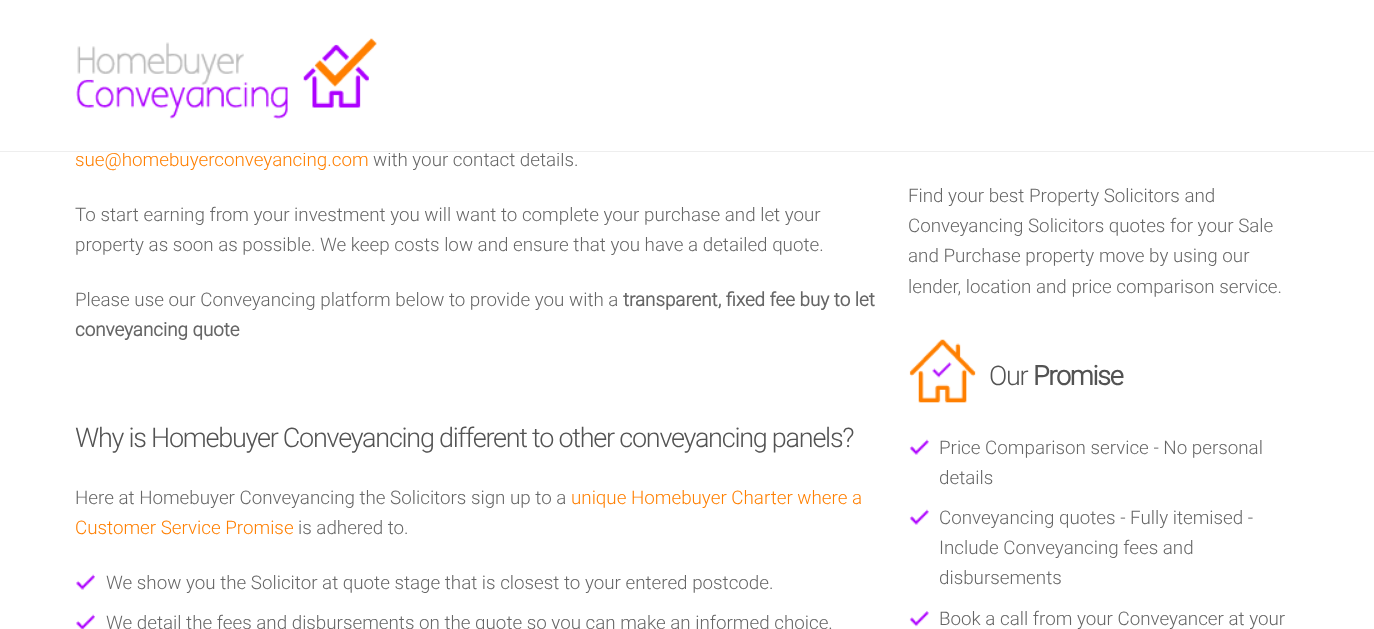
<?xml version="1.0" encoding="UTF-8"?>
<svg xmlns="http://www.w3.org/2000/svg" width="1374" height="629">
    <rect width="100%" height="100%" fill="#FFFFFF"/>
    <text x="75" y="166" font-family="Roboto" font-size="18.8" font-weight="300" fill="#FF7F00">sue@homebuyerconveyancing.com</text>
    <text x="373" y="166" font-family="Roboto" font-size="18.8" font-weight="300" fill="#666666">with your contact details.</text>
    <rect x="113" y="151" width="451" height="2" fill="#FFFFFF"/>
    <rect x="0" y="151" width="1374" height="1" fill="#EEEEEE"/>
    <image x="76" y="38" width="301" height="81" href="img_01.png"/>
    <text font-family="Roboto" font-size="18.8" font-weight="300" fill="#666666">
        <tspan x="75" y="221">To start earning from your investment you will want to complete your purchase and let your</tspan>
        <tspan x="75" y="251">property as soon as possible. We keep costs low and ensure that you have a detailed quote.</tspan>
    </text>
    <text x="75" y="306" font-family="Roboto" font-size="18.8" font-weight="300" fill="#666666">Please use our Conveyancing platform below to provide you with a</text>
    <text x="623" y="306" font-family="Roboto" font-size="18.8" font-weight="700" fill="#666666">transparent, fixed fee buy to let</text>
    <text x="75" y="336" font-family="Roboto" font-size="18.8" font-weight="700" fill="#666666">conveyancing quote</text>
    <text x="75" y="447" font-family="Roboto" font-size="27" font-weight="300" letter-spacing="-1.25" fill="#535353">Why is Homebuyer Conveyancing different to other conveyancing panels?</text>
    <text x="75" y="504" font-family="Roboto" font-size="18.8" font-weight="300" fill="#666666">Here at Homebuyer Conveyancing the Solicitors sign up to a</text>
    <text x="571" y="504" font-family="Roboto" font-size="18.8" font-weight="300" fill="#FF7F00">unique Homebuyer Charter where a</text>
    <text x="75" y="534" font-family="Roboto" font-size="18.8" font-weight="300" fill="#FF7F00">Customer Service Promise</text>
    <text x="298" y="534" font-family="Roboto" font-size="18.8" font-weight="300" fill="#666666">is adhered to.</text>
    <image x="76" y="574" width="19" height="16" href="img_02.png"/>
    <text x="106" y="589" font-family="Roboto" font-size="18.8" font-weight="300" fill="#666666">We show you the Solicitor at quote stage that is closest to your entered postcode.</text>
    <image x="76" y="614" width="19" height="15" href="img_03.png"/>
    <text x="106" y="629" font-family="Roboto" font-size="18.8" font-weight="300" fill="#666666">We detail the fees and disbursements on the quote so you can make an informed choice.</text>
    <text font-family="Roboto" font-size="18.8" font-weight="300" fill="#666666">
        <tspan x="908" y="202">Find your best Property Solicitors and</tspan>
        <tspan x="908" y="232">Conveyancing Solicitors quotes for your Sale</tspan>
        <tspan x="908" y="262">and Purchase property move by using our</tspan>
        <tspan x="908" y="293">lender, location and price comparison service.</tspan>
    </text>
    <image x="909" y="339" width="67" height="64" href="img_04.png"/>
    <text x="989" y="385" font-family="Roboto" font-size="27" font-weight="300" letter-spacing="-1.25" fill="#535353">Our</text>
    <text x="1033" y="385" font-family="Roboto" font-size="27" font-weight="700" letter-spacing="-1.25" fill="#535353">Promise</text>
    <image x="909" y="439" width="20" height="16" href="img_05.png"/>
    <text font-family="Roboto" font-size="18.8" font-weight="300" fill="#666666">
        <tspan x="939" y="454">Price Comparison service - No personal</tspan>
        <tspan x="939" y="484">details</tspan>
    </text>
    <image x="909" y="509" width="20" height="16" href="img_05.png"/>
    <text font-family="Roboto" font-size="18.8" font-weight="300" fill="#666666">
        <tspan x="939" y="524">Conveyancing quotes - Fully itemised -</tspan>
        <tspan x="939" y="554">Include Conveyancing fees and</tspan>
        <tspan x="939" y="584">disbursements</tspan>
    </text>
    <image x="909" y="611" width="20" height="16" href="img_06.png"/>
    <text x="939" y="625" font-family="Roboto" font-size="18.8" font-weight="300" fill="#666666">Book a call from your Conveyancer at your</text>
</svg>
